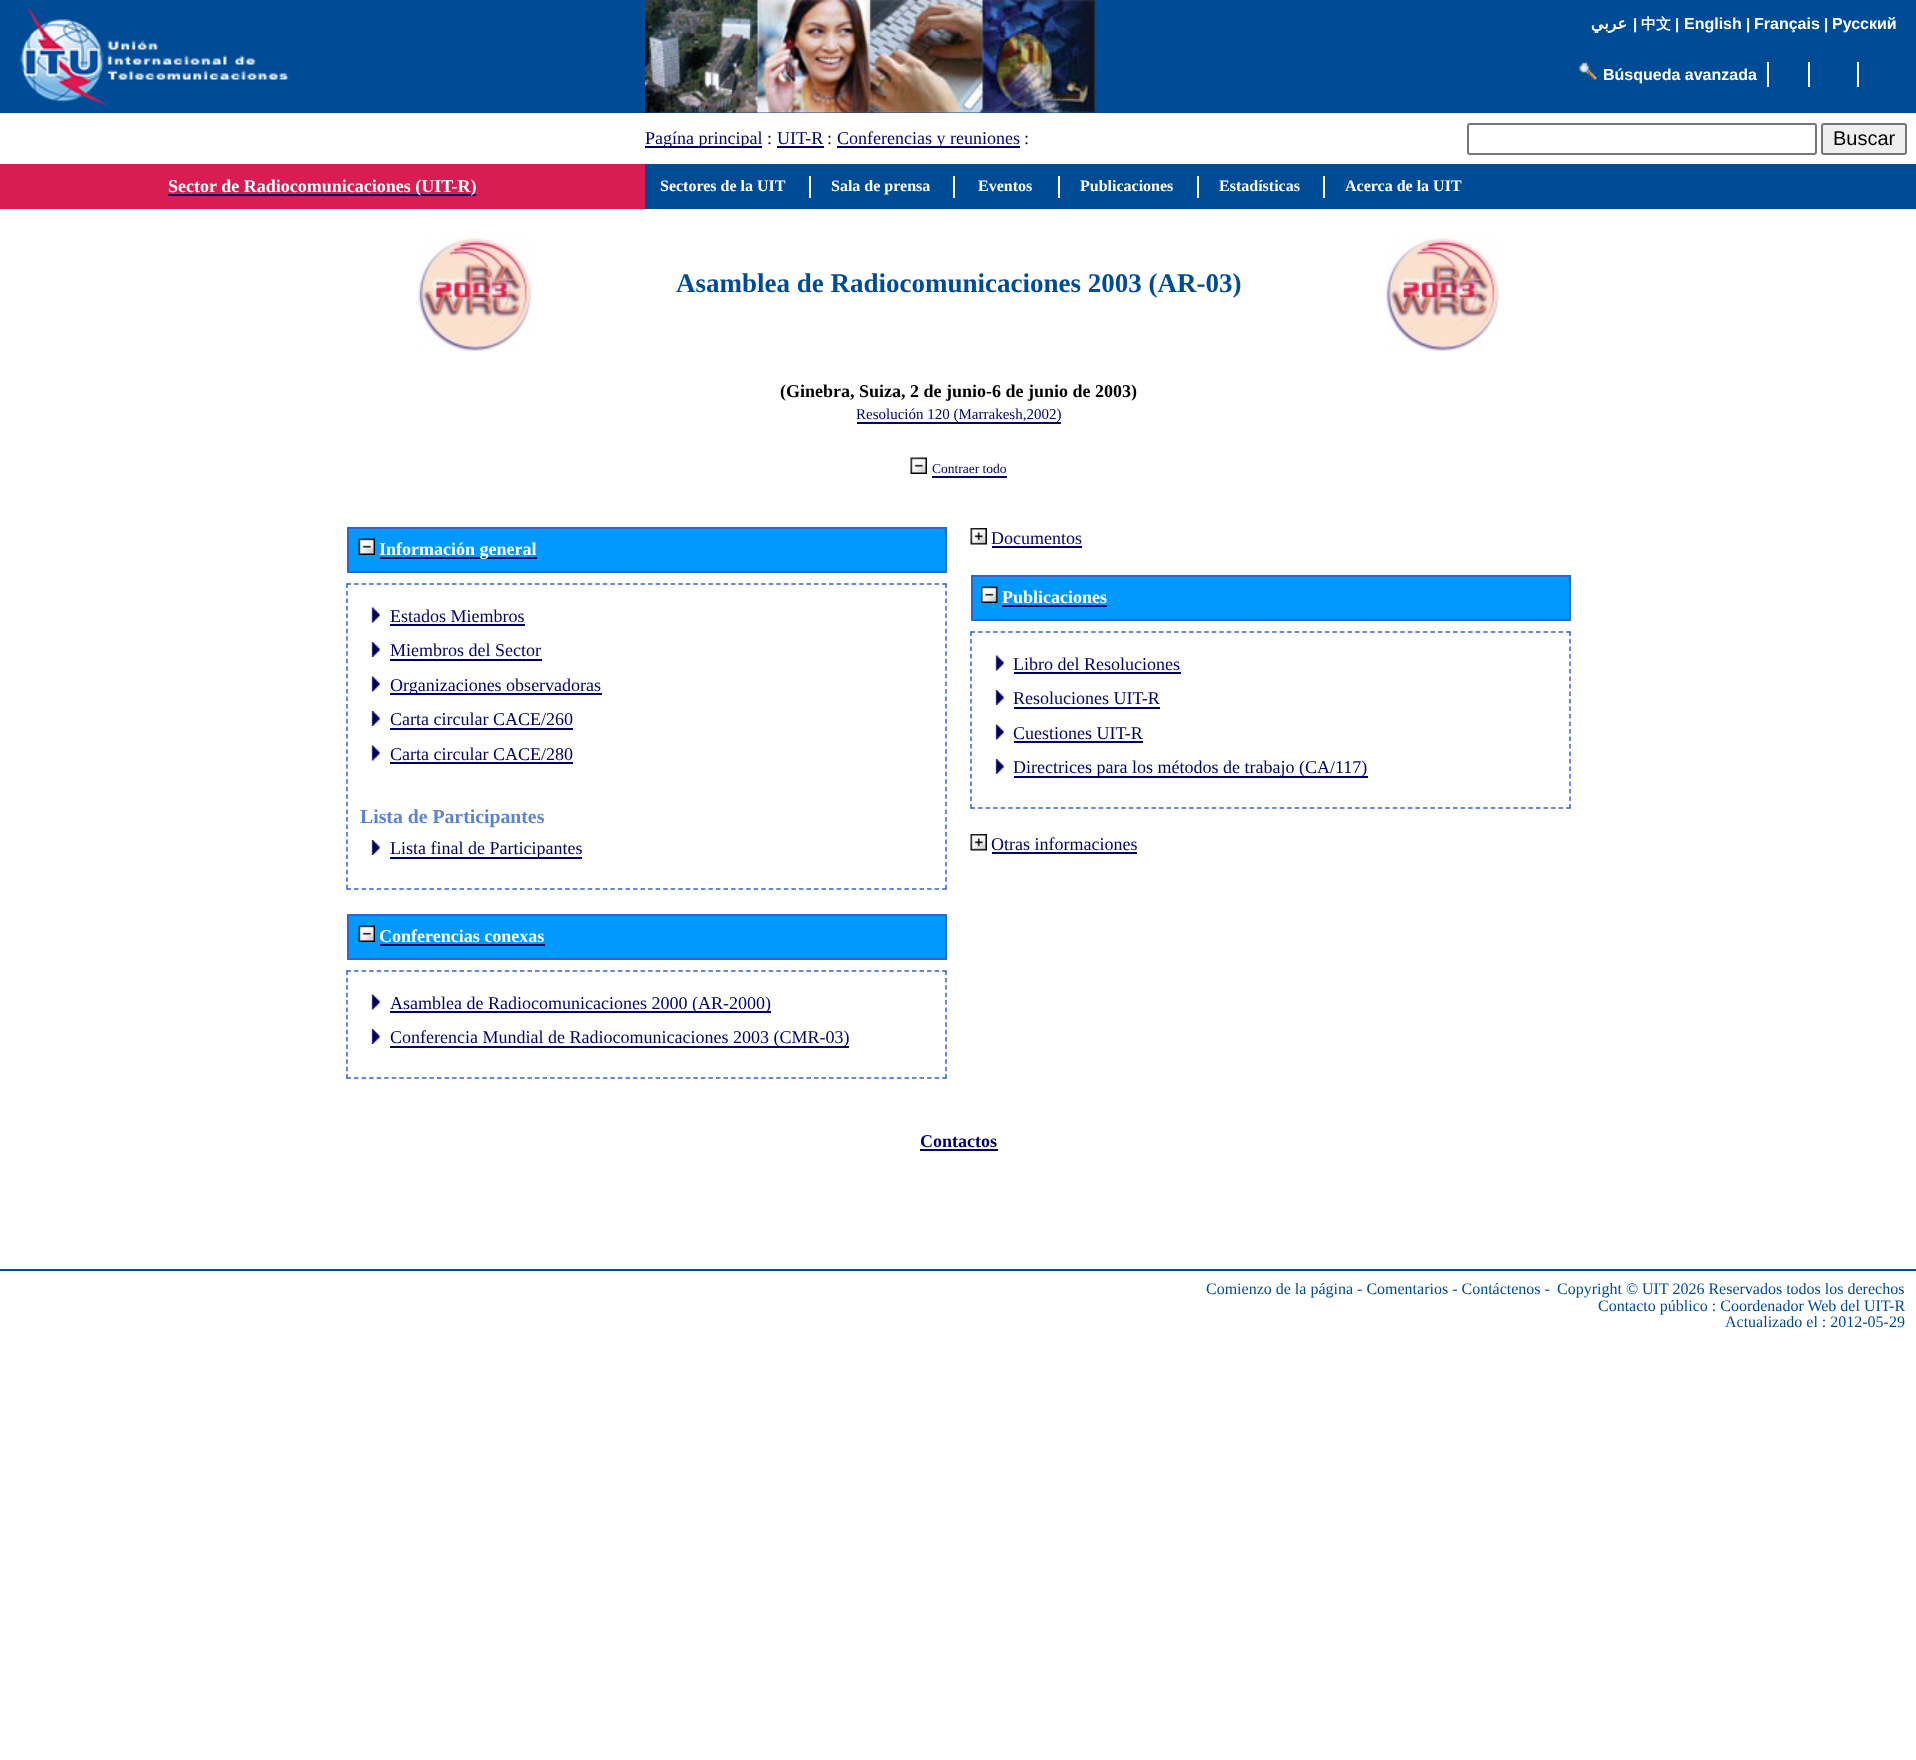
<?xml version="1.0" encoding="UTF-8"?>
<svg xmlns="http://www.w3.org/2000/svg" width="1916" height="1760">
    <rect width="100%" height="100%" fill="#FFFFFF"/>
    <rect x="0" y="0" width="1916" height="113" fill="#004B96"/>
    <image x="19" y="6" width="270" height="100" href="img_01.png"/>
    <image x="645" y="0" width="450" height="113" href="img_02.png"/>
    <text x="1627" y="29" font-family="DejaVu Sans" font-size="16" font-weight="700" direction="rtl" fill="#FFFFFF">عربي</text>
    <text x="1633" y="29" font-family="Liberation Sans" font-size="15" font-weight="700" fill="#FFFFFF">|</text>
    <text x="1641" y="29" font-family="WenQuanYi Zen Hei" font-size="15" font-weight="700" fill="#FFFFFF">中文</text>
    <text x="1675" y="29" font-family="Liberation Sans" font-size="15" font-weight="700" fill="#FFFFFF">|</text>
    <text x="1684" y="29" font-family="Liberation Sans" font-size="16" font-weight="700" fill="#FFFFFF">English</text>
    <text x="1746" y="29" font-family="Liberation Sans" font-size="15" font-weight="700" fill="#FFFFFF">|</text>
    <text x="1754" y="29" font-family="Liberation Sans" font-size="16" font-weight="700" fill="#FFFFFF">Français</text>
    <text x="1824" y="29" font-family="Liberation Sans" font-size="15" font-weight="700" fill="#FFFFFF">|</text>
    <text x="1832" y="29" font-family="Liberation Sans" font-size="16" font-weight="700" fill="#FFFFFF">Русский</text>
    <rect x="1767" y="62" width="2" height="25" fill="#FFFFFF"/>
    <image x="1579" y="62" width="18" height="18" href="img_03.png"/>
    <text x="1603" y="80" font-family="Liberation Sans" font-size="16" font-weight="700" fill="#FFFFFF">Búsqueda avanzada</text>
    <rect x="1808" y="62" width="2" height="25" fill="#FFFFFF"/>
    <rect x="1857" y="62" width="2" height="25" fill="#FFFFFF"/>
    <rect x="645" y="146" width="117" height="2" fill="#000066"/>
    <text x="645" y="144" font-family="Liberation Serif" font-size="18" fill="#000066">Pagína principal</text>
    <text x="767" y="144" font-family="Liberation Serif" font-size="18" fill="#000000">:</text>
    <text x="777" y="144" font-family="Liberation Serif" font-size="18" fill="#000066">UIT-R</text>
    <rect x="777" y="146" width="47" height="2" fill="#000066"/>
    <text x="827" y="144" font-family="Liberation Serif" font-size="18" fill="#000000">:</text>
    <rect x="837" y="146" width="183" height="2" fill="#000066"/>
    <text x="837" y="144" font-family="Liberation Serif" font-size="18" fill="#000066">Conferencias y reuniones</text>
    <text x="1024" y="144" font-family="Liberation Serif" font-size="18" fill="#000000">:</text>
    <rect x="1468" y="124" width="348" height="30" rx="2" fill="none" stroke="#767676" stroke-width="2"/>
    <rect x="1822" y="124" width="84" height="30" rx="2" fill="#EFEFEF" stroke="#767676" stroke-width="2"/>
    <text x="1833" y="145" font-family="Liberation Sans" font-size="20" fill="#000000">Buscar</text>
    <rect x="0" y="164" width="645" height="45" fill="#D91D52"/>
    <rect x="168" y="194" width="308" height="2" fill="#000066"/>
    <text x="168" y="192" font-family="Liberation Serif" font-size="18" font-weight="700" fill="#FFFFFF">Sector de Radiocomunicaciones (UIT-R)</text>
    <rect x="645" y="164" width="1271" height="45" fill="#004B96"/>
    <rect x="0" y="1269" width="1916" height="2" fill="#004B96"/>
    <image x="418" y="238" width="113" height="113" href="img_04.png"/>
    <text x="676" y="292" font-family="Liberation Serif" font-size="27" font-weight="700" fill="#004B96">Asamblea de Radiocomunicaciones 2003 (AR-03)</text>
    <image x="1386" y="238" width="113" height="113" href="img_05.png"/>
    <text x="780" y="397" font-family="Liberation Serif" font-size="18" font-weight="700" fill="#000000">(Ginebra, Suiza, 2 de junio-6 de junio de 2003)</text>
    <rect x="857" y="422" width="204" height="2" fill="#000066"/>
    <text x="856" y="419" font-family="Liberation Serif" font-size="15" fill="#000066">Resolución 120 (Marrakesh,2002)</text>
    <image x="910" y="457" width="17" height="17" href="img_06.png"/>
    <text x="932" y="473" font-family="Liberation Serif" font-size="13.5" fill="#000066">Contraer todo</text>
    <rect x="932" y="476" width="75" height="2" fill="#000066"/>
    <rect x="348" y="528" width="598" height="44" fill="#0099FF" stroke="#3366CC" stroke-width="2"/>
    <image x="358" y="538" width="17" height="17" href="img_07.png"/>
    <rect x="380" y="557" width="157" height="2" fill="#000066"/>
    <text x="379" y="555" font-family="Liberation Serif" font-size="18" font-weight="700" fill="#FFFFFF">Información general</text>
    <path d="M 346.5 584 H 946.5" fill="none" stroke="#3366CC" stroke-width="1.5" stroke-dasharray="4.5 3.04"/>
    <path d="M 946 583.5 V 889.5" fill="none" stroke="#3366CC" stroke-width="1.5" stroke-dasharray="4.5 3.03"/>
    <path d="M 346.5 889 H 946.5" fill="none" stroke="#3366CC" stroke-width="1.5" stroke-dasharray="4.5 3.04"/>
    <path d="M 347 583.5 V 889.5" fill="none" stroke="#3366CC" stroke-width="1.5" stroke-dasharray="4.5 3.03"/>
    <image x="371" y="607" width="9" height="16" href="img_08.png"/>
    <text x="390" y="622" font-family="Liberation Serif" font-size="18" fill="#000066">Estados Miembros</text>
    <rect x="390" y="624" width="135" height="2" fill="#000066"/>
    <image x="371" y="642" width="9" height="15" href="img_09.png"/>
    <text x="390" y="656" font-family="Liberation Serif" font-size="18" fill="#000066">Miembros del Sector</text>
    <rect x="390" y="659" width="152" height="2" fill="#000066"/>
    <image x="371" y="676" width="9" height="16" href="img_08.png"/>
    <rect x="390" y="693" width="212" height="2" fill="#000066"/>
    <text x="390" y="691" font-family="Liberation Serif" font-size="18" fill="#000066">Organizaciones observadoras</text>
    <image x="371" y="711" width="9" height="15" href="img_09.png"/>
    <text x="390" y="725" font-family="Liberation Serif" font-size="18" fill="#000066">Carta circular CACE/260</text>
    <rect x="390" y="728" width="183" height="2" fill="#000066"/>
    <image x="371" y="745" width="9" height="16" href="img_08.png"/>
    <text x="390" y="760" font-family="Liberation Serif" font-size="18" fill="#000066">Carta circular CACE/280</text>
    <rect x="390" y="762" width="183" height="2" fill="#000066"/>
    <text x="360" y="823" font-family="Liberation Serif" font-size="19.75" font-weight="700" fill="#5B84D7">Lista de Participantes</text>
    <image x="371" y="840" width="9" height="15" href="img_09.png"/>
    <rect x="390" y="857" width="192" height="2" fill="#000066"/>
    <text x="390" y="854" font-family="Liberation Serif" font-size="18" fill="#000066">Lista final de Participantes</text>
    <rect x="348" y="915" width="598" height="44" fill="#0099FF" stroke="#3366CC" stroke-width="2"/>
    <image x="358" y="925" width="17" height="17" href="img_07.png"/>
    <text x="379" y="942" font-family="Liberation Serif" font-size="18" font-weight="700" fill="#FFFFFF">Conferencias conexas</text>
    <rect x="380" y="944" width="165" height="2" fill="#000066"/>
    <path d="M 346.5 971 H 946.5" fill="none" stroke="#3366CC" stroke-width="1.5" stroke-dasharray="4.5 3.04"/>
    <path d="M 946 970.5 V 1078.5" fill="none" stroke="#3366CC" stroke-width="1.5" stroke-dasharray="4.5 2.9"/>
    <path d="M 346.5 1078 H 946.5" fill="none" stroke="#3366CC" stroke-width="1.5" stroke-dasharray="4.5 3.04"/>
    <path d="M 347 970.5 V 1078.5" fill="none" stroke="#3366CC" stroke-width="1.5" stroke-dasharray="4.5 2.9"/>
    <image x="371" y="994" width="9" height="16" href="img_08.png"/>
    <rect x="390" y="1011" width="381" height="2" fill="#000066"/>
    <text x="390" y="1009" font-family="Liberation Serif" font-size="18" fill="#000066">Asamblea de Radiocomunicaciones 2000 (AR-2000)</text>
    <image x="371" y="1029" width="9" height="15" href="img_09.png"/>
    <rect x="390" y="1046" width="459" height="2" fill="#000066"/>
    <text x="390" y="1043" font-family="Liberation Serif" font-size="18" fill="#000066">Conferencia Mundial de Radiocomunicaciones 2003 (CMR-03)</text>
    <image x="970" y="528" width="17" height="17" href="img_10.png"/>
    <text x="991" y="544" font-family="Liberation Serif" font-size="18" fill="#000066">Documentos</text>
    <rect x="992" y="546" width="90" height="2" fill="#000066"/>
    <rect x="972" y="576" width="598" height="44" fill="#0099FF" stroke="#3366CC" stroke-width="2"/>
    <image x="981" y="586" width="17" height="17" href="img_11.png"/>
    <text x="1002" y="603" font-family="Liberation Serif" font-size="18" font-weight="700" fill="#FFFFFF">Publicaciones</text>
    <rect x="1002" y="605" width="105" height="2" fill="#000066"/>
    <path d="M 970.5 632 H 1570.5" fill="none" stroke="#3366CC" stroke-width="1.5" stroke-dasharray="4.5 3.04"/>
    <path d="M 1570 631.5 V 808.5" fill="none" stroke="#3366CC" stroke-width="1.5" stroke-dasharray="4.5 3"/>
    <path d="M 970.5 808 H 1570.5" fill="none" stroke="#3366CC" stroke-width="1.5" stroke-dasharray="4.5 3.04"/>
    <path d="M 971 631.5 V 808.5" fill="none" stroke="#3366CC" stroke-width="1.5" stroke-dasharray="4.5 3"/>
    <image x="995" y="655" width="9" height="16" href="img_12.png"/>
    <text x="1013" y="670" font-family="Liberation Serif" font-size="18" fill="#000066">Libro del Resoluciones</text>
    <rect x="1014" y="672" width="167" height="2" fill="#000066"/>
    <image x="995" y="690" width="9" height="15" href="img_13.png"/>
    <text x="1013" y="704" font-family="Liberation Serif" font-size="18" fill="#000066">Resoluciones UIT-R</text>
    <rect x="1014" y="707" width="146" height="2" fill="#000066"/>
    <image x="995" y="724" width="9" height="16" href="img_12.png"/>
    <text x="1013" y="739" font-family="Liberation Serif" font-size="18" fill="#000066">Cuestiones UIT-R</text>
    <rect x="1014" y="741" width="129" height="2" fill="#000066"/>
    <image x="995" y="759" width="9" height="15" href="img_13.png"/>
    <rect x="1014" y="776" width="354" height="2" fill="#000066"/>
    <text x="1013" y="773" font-family="Liberation Serif" font-size="18" fill="#000066">Directrices para los métodos de trabajo (CA/117)</text>
    <image x="970" y="834" width="17" height="17" href="img_10.png"/>
    <text x="991" y="850" font-family="Liberation Serif" font-size="18" fill="#000066">Otras informaciones</text>
    <rect x="992" y="852" width="145" height="2" fill="#000066"/>
    <text x="920" y="1147" font-family="Liberation Serif" font-size="18" font-weight="700" fill="#000066">Contactos</text>
    <rect x="920" y="1149" width="78" height="2" fill="#000066"/>
    <text x="1206" y="1294" font-family="Liberation Serif" font-size="16" fill="#004B96">Comienzo de la página - Comentarios - Contáctenos -</text>
    <text x="1557" y="1294" font-family="Liberation Serif" font-size="16" fill="#004B96">Copyright © UIT 2026 Reservados todos los derechos</text>
    <text x="1598" y="1311" font-family="Liberation Serif" font-size="16" fill="#004B96">Contacto público : Coordenador Web del UIT-R</text>
    <text x="1725" y="1327" font-family="Liberation Serif" font-size="16" fill="#004B96">Actualizado el : 2012-05-29</text>
    <text x="660" y="191" font-family="Liberation Serif" font-size="16" font-weight="700" fill="#FFFFFF">Sectores de la UIT</text>
    <rect x="809" y="176" width="2" height="22" fill="#FFFFFF"/>
    <text x="831" y="191" font-family="Liberation Serif" font-size="16" font-weight="700" fill="#FFFFFF">Sala de prensa</text>
    <rect x="953" y="176" width="2" height="22" fill="#FFFFFF"/>
    <text x="978" y="191" font-family="Liberation Serif" font-size="16" font-weight="700" fill="#FFFFFF">Eventos</text>
    <rect x="1058" y="176" width="2" height="22" fill="#FFFFFF"/>
    <text x="1080" y="191" font-family="Liberation Serif" font-size="16" font-weight="700" fill="#FFFFFF">Publicaciones</text>
    <rect x="1197" y="176" width="2" height="22" fill="#FFFFFF"/>
    <text x="1219" y="191" font-family="Liberation Serif" font-size="16" font-weight="700" fill="#FFFFFF">Estadísticas</text>
    <rect x="1323" y="176" width="2" height="22" fill="#FFFFFF"/>
    <text x="1345" y="191" font-family="Liberation Serif" font-size="16" font-weight="700" fill="#FFFFFF">Acerca de la UIT</text>
</svg>
